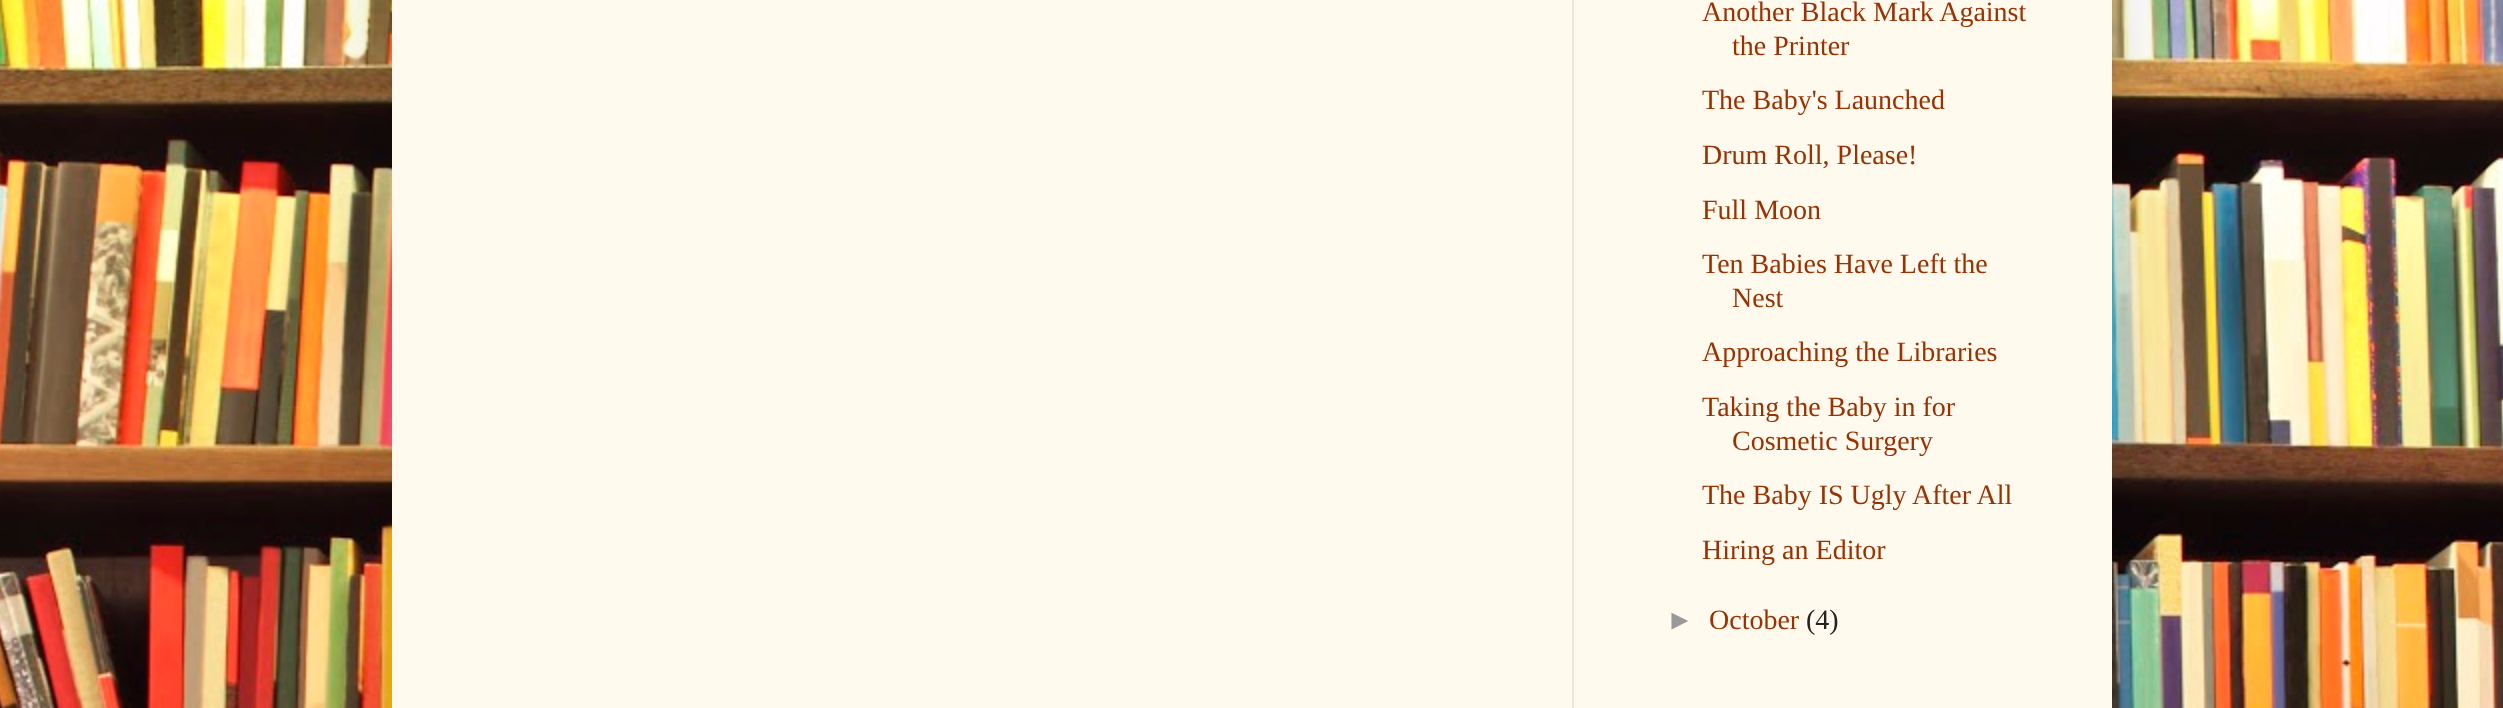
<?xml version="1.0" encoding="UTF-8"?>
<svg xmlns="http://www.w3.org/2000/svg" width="2503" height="708">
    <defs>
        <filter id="blur1" x="-50%" y="-200%" width="200%" height="500%"><feGaussianBlur stdDeviation="40"/></filter>
    </defs>
    <rect width="100%" height="100%" fill="#FFFFFF"/>
    <image x="0" y="0" width="2503" height="708" href="img_01.png"/>
    <rect x="392" y="-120" width="1720" height="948" fill="#000000" fill-opacity="0.15" filter="url(#blur1)"/>
    <rect x="392" y="0" width="1720" height="708" fill="#FFF9EE"/>
    <rect x="1572" y="0" width="2" height="708" fill="#EEE5DD"/>
    <text x="1702" y="21" font-family="Liberation Serif" font-size="28" fill="#993200">Another Black Mark Against</text>
    <text x="1732" y="55" font-family="Liberation Serif" font-size="28" fill="#993200">the Printer</text>
    <text font-family="Liberation Serif" font-size="28" fill="#993200">
        <tspan x="1702" y="109">The Baby's Launched</tspan>
        <tspan x="1702" y="164">Drum Roll, Please!</tspan>
        <tspan x="1702" y="219">Full Moon</tspan>
        <tspan x="1702" y="273">Ten Babies Have Left the</tspan>
    </text>
    <text x="1732" y="307" font-family="Liberation Serif" font-size="28" fill="#993200">Nest</text>
    <text font-family="Liberation Serif" font-size="28" fill="#993200">
        <tspan x="1702" y="361">Approaching the Libraries</tspan>
        <tspan x="1702" y="416">Taking the Baby in for</tspan>
    </text>
    <text x="1732" y="450" font-family="Liberation Serif" font-size="28" fill="#993200">Cosmetic Surgery</text>
    <text font-family="Liberation Serif" font-size="28" fill="#993200">
        <tspan x="1702" y="504">The Baby IS Ugly After All</tspan>
        <tspan x="1702" y="559">Hiring an Editor</tspan>
    </text>
    <text x="1666" y="629" font-family="Liberation Sans" font-size="28" fill="#999999">►</text>
    <text x="1709" y="629" font-family="Liberation Serif" font-size="28" fill="#993200">October</text>
    <text x="1806" y="629" font-family="Liberation Serif" font-size="28" fill="#222222">(4)</text>
</svg>
